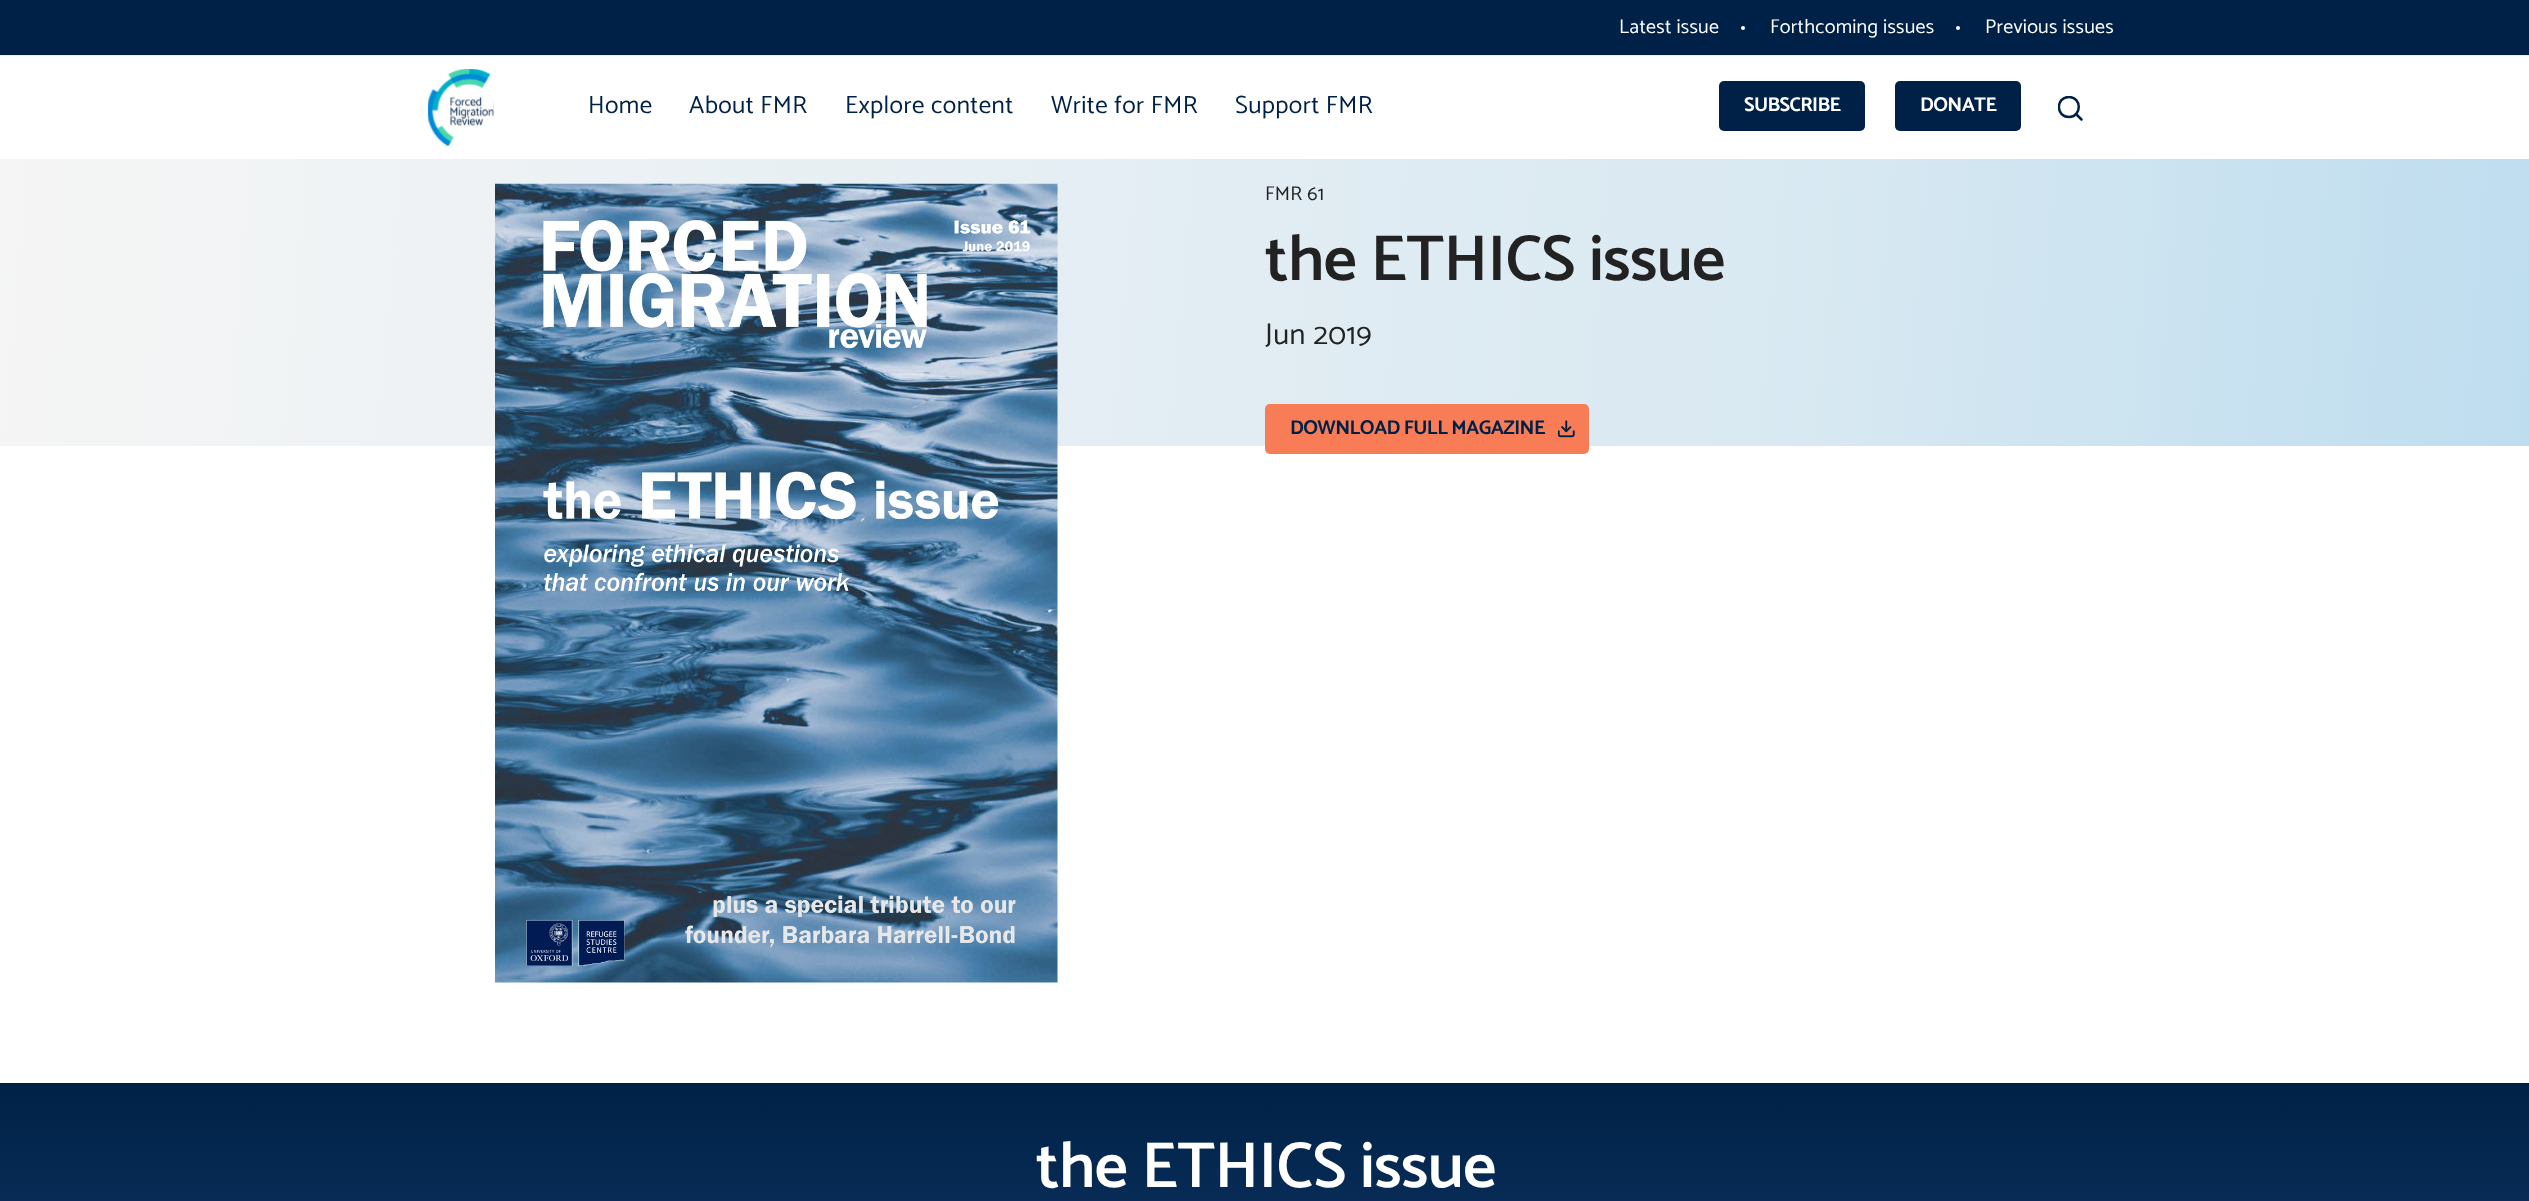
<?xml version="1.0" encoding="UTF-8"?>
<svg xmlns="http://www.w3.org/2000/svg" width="2529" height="1201">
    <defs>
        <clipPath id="clip1"><rect x="2058" y="96" width="25" height="25"/></clipPath>
        <linearGradient id="g1" gradientUnits="userSpaceOnUse" x1="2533" y1="413" x2="-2.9" y2="192"><stop offset="0" stop-color="#BEDDEF"/><stop offset="0.3" stop-color="#D9E9F2"/><stop offset="1" stop-color="#F5F5F5"/></linearGradient>
        <linearGradient id="g2" gradientUnits="userSpaceOnUse" x1="1265" y1="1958" x2="1265" y2="1083"><stop offset="0" stop-color="#528AC9"/><stop offset="0" stop-color="#366FAF"/><stop offset="1" stop-color="#002147"/></linearGradient>
    </defs>
    <rect width="100%" height="100%" fill="#FFFFFF"/>
    <rect x="0" y="0" width="2529" height="55" fill="#002147"/>
    <rect x="0" y="55" width="2529" height="1" fill="#EEEEEE"/>
    <text x="1619" y="33" font-family="Catamaran" font-size="20" letter-spacing="0.25" fill="#FFFFFF">Latest issue</text>
    <circle cx="1743" cy="28" r="2" fill="#FFFFFF"/>
    <text x="1770" y="33" font-family="Catamaran" font-size="20" letter-spacing="0.25" fill="#FFFFFF">Forthcoming issues</text>
    <circle cx="1958" cy="28" r="2" fill="#FFFFFF"/>
    <text x="1985" y="33" font-family="Catamaran" font-size="20" letter-spacing="0.25" fill="#FFFFFF">Previous issues</text>
    <image x="428" y="69" width="66" height="77" href="img_01.png"/>
    <text x="588" y="113" font-family="Catamaran" font-size="25" letter-spacing="0.4" fill="#002147">Home</text>
    <text x="689" y="113" font-family="Catamaran" font-size="25" letter-spacing="0.4" fill="#002147">About FMR</text>
    <text x="845" y="113" font-family="Catamaran" font-size="25" letter-spacing="0.4" fill="#002147">Explore content</text>
    <text x="1051" y="113" font-family="Catamaran" font-size="25" letter-spacing="0.4" fill="#002147">Write for FMR</text>
    <text x="1235" y="113" font-family="Catamaran" font-size="25" letter-spacing="0.4" fill="#002147">Support FMR</text>
    <g clip-path="url(#clip1)">
        <path d="M 2069 117 C 2082 117 2082 97 2069 97 C 2055.5 97 2055.5 117 2069 117 Z" fill="none" stroke="#002147" stroke-width="2.5" stroke-linecap="round" stroke-linejoin="round"/>
    </g>
    <path d="M 2081.5 119.5 L 2076 114" fill="none" stroke="#002147" stroke-width="2.5" stroke-linecap="round" stroke-linejoin="round"/>
    <rect x="1719" y="81" width="146" height="50" rx="5" fill="#002147"/>
    <text x="1744" y="111" font-family="Catamaran" font-size="20" font-weight="700" letter-spacing="-0.6" fill="#FFFFFF">SUBSCRIBE</text>
    <rect x="1895" y="81" width="126" height="50" rx="5" fill="#002147"/>
    <text x="1920" y="111" font-family="Catamaran" font-size="20" font-weight="700" letter-spacing="-0.6" fill="#FFFFFF">DONATE</text>
    <rect x="0" y="159" width="2529" height="287" fill="url(#g1)"/>
    <image x="495" y="183" width="563" height="800" href="img_02.png"/>
    <text x="1265" y="200" font-family="Catamaran" font-size="20" letter-spacing="0.25" fill="#222222">FMR 61</text>
    <text x="1265" y="280" font-family="Catamaran" font-size="65" font-weight="600" letter-spacing="-0.6" fill="#222222">the ETHICS issue</text>
    <text x="1265" y="344" font-family="Catamaran" font-size="30" letter-spacing="0.5" fill="#222222">Jun 2019</text>
    <rect x="1265" y="404" width="324" height="50" rx="5" fill="#F87C56"/>
    <text x="1290" y="434" font-family="Catamaran" font-size="20" font-weight="700" letter-spacing="-0.6" fill="#002147">DOWNLOAD FULL MAGAZINE</text>
    <image x="1558" y="420" width="17" height="18" href="img_03.png"/>
    <rect x="0" y="1083" width="2529" height="118" fill="url(#g2)"/>
    <text x="1036" y="1187" font-family="Catamaran" font-size="65" font-weight="600" letter-spacing="-0.6" fill="#FFFFFF">the ETHICS issue</text>
</svg>
